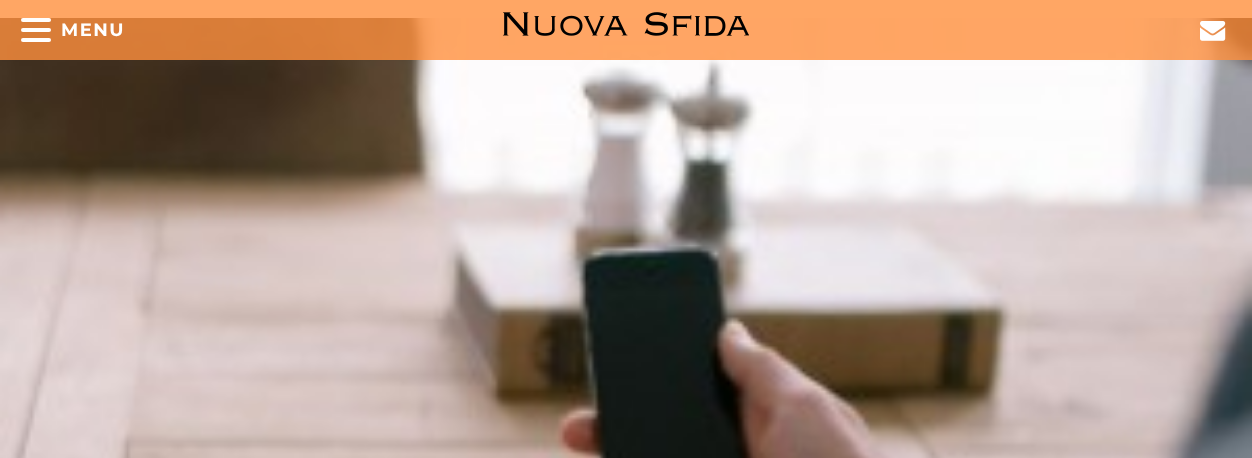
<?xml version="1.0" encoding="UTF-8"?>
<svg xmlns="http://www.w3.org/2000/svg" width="1252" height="458">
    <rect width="100%" height="100%" fill="#FFFFFF"/>
    <image x="0" y="18" width="1252" height="440" href="img_01.png"/>
    <rect x="0" y="0" width="1252" height="60" fill="#FF903D" fill-opacity="0.8"/>
    <rect x="21" y="18" width="30" height="4" rx="2" fill="#FFFFFF"/>
    <rect x="21" y="28" width="30" height="4" rx="2" fill="#FFFFFF"/>
    <rect x="21" y="38" width="30" height="4" rx="2" fill="#FFFFFF"/>
    <text x="61" y="36" font-family="Montserrat" font-size="18" font-weight="700" letter-spacing="1.5" fill="#FFFFFF">MENU</text>
    <image x="503" y="12" width="246" height="24" href="img_02.png"/>
    <image x="1200" y="21" width="26" height="20" href="img_03.png"/>
</svg>
